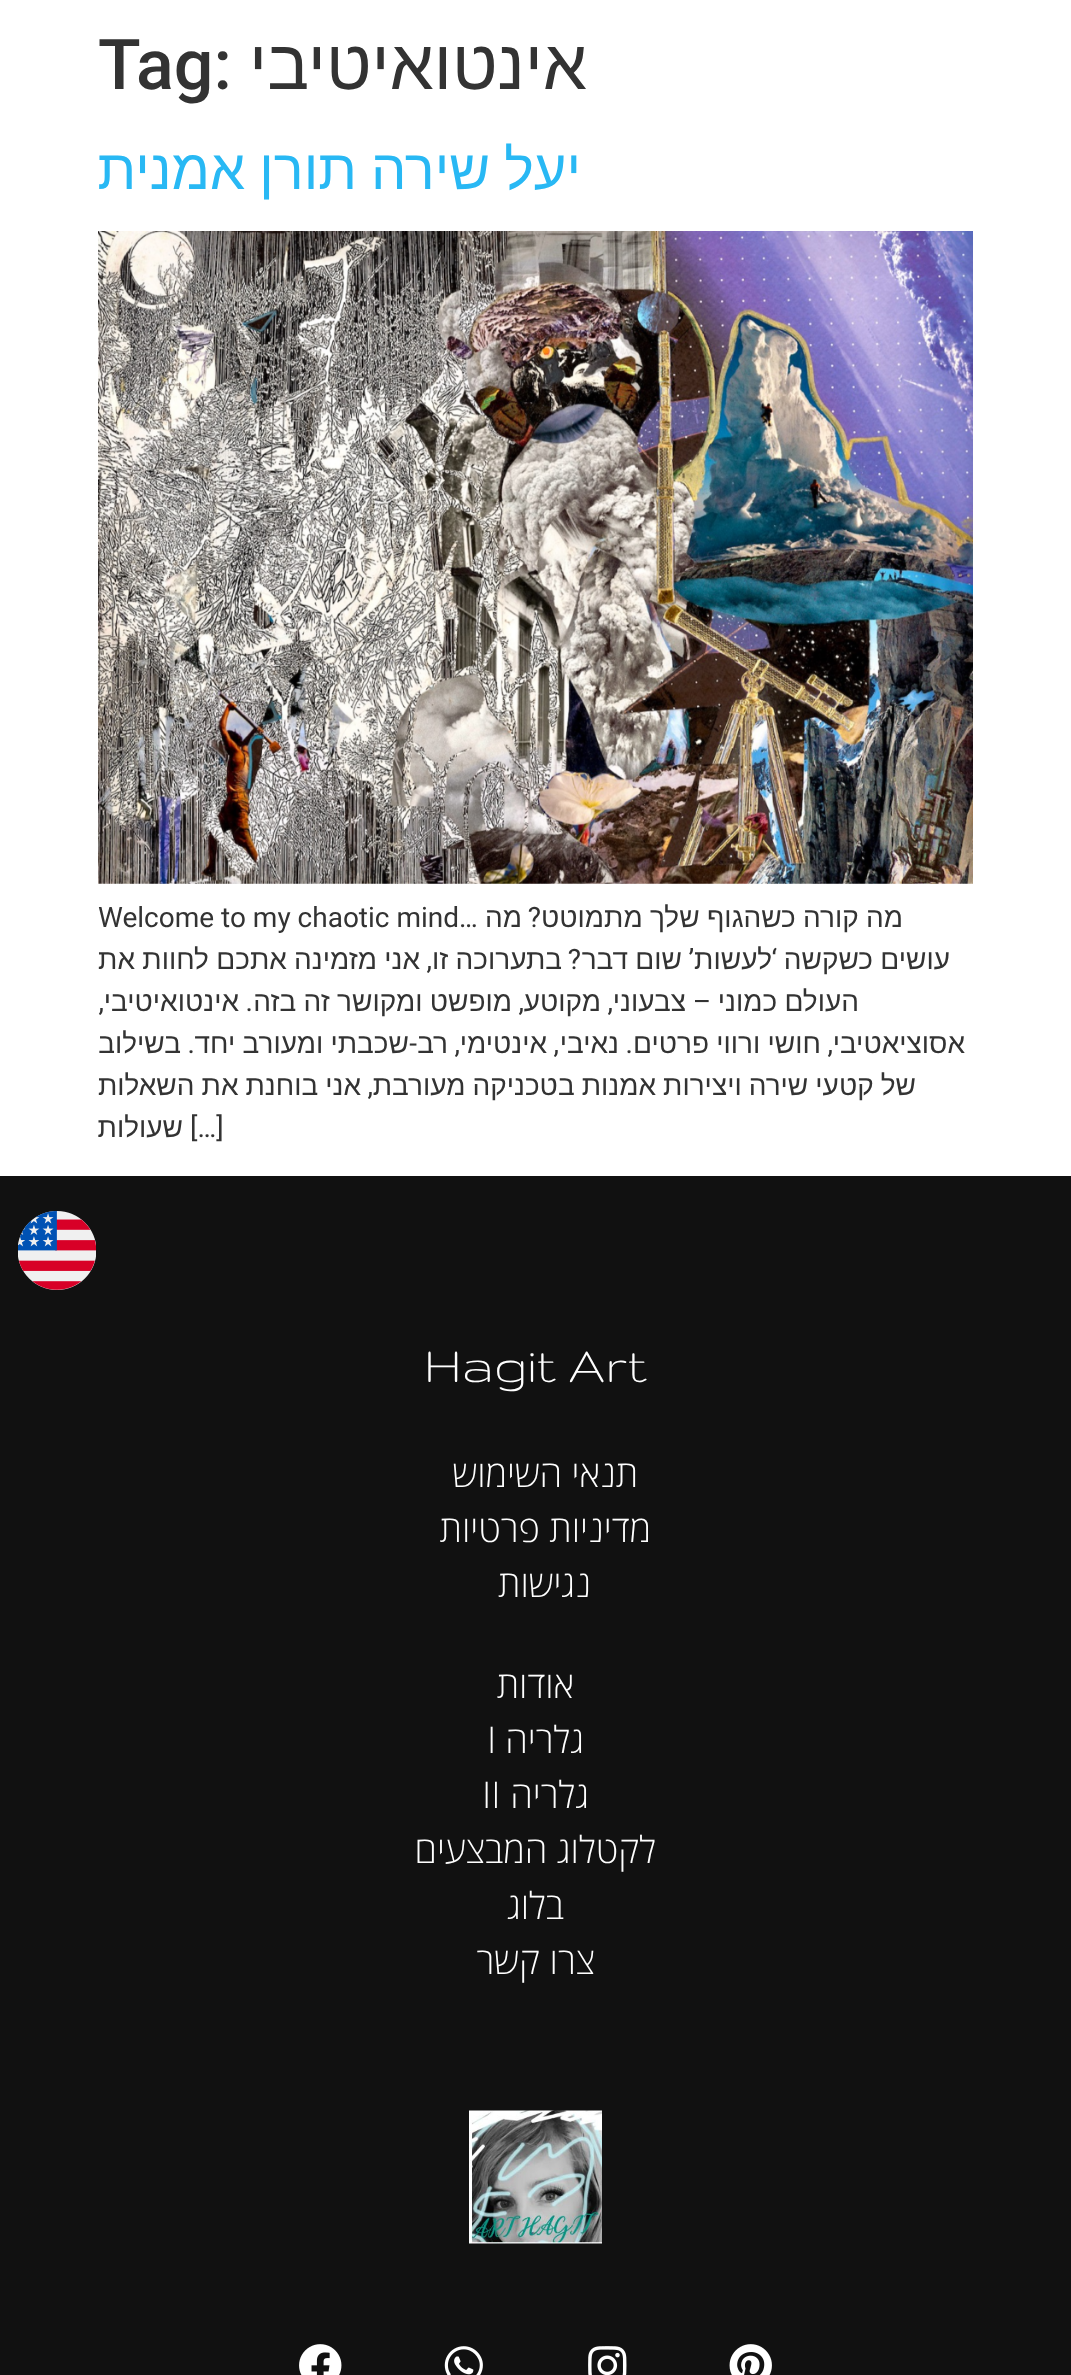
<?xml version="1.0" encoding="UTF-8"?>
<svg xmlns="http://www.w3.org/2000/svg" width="1071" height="2375">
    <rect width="100%" height="100%" fill="#FFFFFF"/>
    <text x="587" y="89" font-family="Liberation Sans" font-size="70" direction="rtl" fill="#333333">אינטואיטיבי</text>
    <text x="98" y="89" font-family="Roboto" font-size="70" font-weight="500" fill="#333333">Tag:</text>
    <text x="581" y="189" word-spacing="-1.5" font-family="Liberation Sans" font-size="56" direction="rtl" fill="#28B8F4">יעל שירה תורן אמנית</text>
    <image x="98" y="231" width="875" height="653" href="img_01.png"/>
    <text x="903" y="927" word-spacing="-0.5" font-family="Liberation Sans" font-size="28" direction="rtl" fill="#333333">מה קורה כשהגוף שלך מתמוטט</text>
    <text x="541" y="927" font-family="Roboto" font-size="28" direction="rtl" fill="#333333">?</text>
    <text x="522" y="927" font-family="Liberation Sans" font-size="28" direction="rtl" fill="#333333">מה</text>
    <text x="98" y="927" font-family="Roboto" font-size="28" fill="#333333">Welcome to my chaotic mind…</text>
    <text x="950" y="969" word-spacing="-0.5" font-family="Liberation Sans" font-size="28" direction="rtl" fill="#333333">עושים כשקשה</text>
    <text x="777" y="969" font-family="Roboto" font-size="28" direction="rtl" fill="#333333">‘</text>
    <text x="772" y="969" font-family="Liberation Sans" font-size="28" direction="rtl" fill="#333333">לעשות</text>
    <text x="694" y="969" font-family="Roboto" font-size="28" direction="rtl" fill="#333333">’</text>
    <text x="682" y="969" word-spacing="-0.5" font-family="Liberation Sans" font-size="28" direction="rtl" fill="#333333">שום דבר</text>
    <text x="581" y="969" font-family="Roboto" font-size="28" direction="rtl" fill="#333333">?</text>
    <text x="562" y="969" word-spacing="-0.5" font-family="Liberation Sans" font-size="28" direction="rtl" fill="#333333">בתערוכה זו</text>
    <text x="432" y="969" font-family="Roboto" font-size="28" direction="rtl" fill="#333333">,</text>
    <text x="420" y="969" word-spacing="-0.5" font-family="Liberation Sans" font-size="28" direction="rtl" fill="#333333">אני מזמינה אתכם לחוות את</text>
    <text x="859" y="1011" word-spacing="-0.5" font-family="Liberation Sans" font-size="28" direction="rtl" fill="#333333">העולם כמוני</text>
    <text x="711" y="1011" font-family="Roboto" font-size="28" direction="rtl" fill="#333333">–</text>
    <text x="686" y="1011" font-family="Liberation Sans" font-size="28" direction="rtl" fill="#333333">צבעוני</text>
    <text x="601" y="1011" font-family="Liberation Sans" font-size="28" direction="rtl" fill="#333333">מקוטע</text>
    <text x="512" y="1011" word-spacing="-0.5" font-family="Liberation Sans" font-size="28" direction="rtl" fill="#333333">מופשט ומקושר זה בזה</text>
    <text x="239" y="1011" font-family="Liberation Sans" font-size="28" direction="rtl" fill="#333333">אינטואיטיבי</text>
    <text x="613" y="1011" font-family="Roboto" font-size="28" direction="rtl" fill="#333333">,</text>
    <text x="524" y="1011" font-family="Roboto" font-size="28" direction="rtl" fill="#333333">,</text>
    <text x="253" y="1011" font-family="Roboto" font-size="28" direction="rtl" fill="#333333">.</text>
    <text x="104" y="1011" font-family="Roboto" font-size="28" direction="rtl" fill="#333333">,</text>
    <text x="965" y="1053" font-family="Liberation Sans" font-size="28" direction="rtl" fill="#333333">אסוציאטיבי</text>
    <text x="821" y="1053" word-spacing="-0.5" font-family="Liberation Sans" font-size="28" direction="rtl" fill="#333333">חושי ורווי פרטים</text>
    <text x="619" y="1053" font-family="Liberation Sans" font-size="28" direction="rtl" fill="#333333">נאיבי</text>
    <text x="547" y="1053" font-family="Liberation Sans" font-size="28" direction="rtl" fill="#333333">אינטימי</text>
    <text x="448" y="1053" font-family="Liberation Sans" font-size="28" direction="rtl" fill="#333333">רב</text>
    <text x="417" y="1053" font-family="Roboto" font-size="28" direction="rtl" fill="#333333">-</text>
    <text x="409" y="1053" word-spacing="-0.5" font-family="Liberation Sans" font-size="28" direction="rtl" fill="#333333">שכבתי ומעורב יחד</text>
    <text x="181" y="1053" font-family="Liberation Sans" font-size="28" direction="rtl" fill="#333333">בשילוב</text>
    <text x="833" y="1053" font-family="Roboto" font-size="28" direction="rtl" fill="#333333">,</text>
    <text x="633" y="1053" font-family="Roboto" font-size="28" direction="rtl" fill="#333333">.</text>
    <text x="559" y="1053" font-family="Roboto" font-size="28" direction="rtl" fill="#333333">,</text>
    <text x="460" y="1053" font-family="Roboto" font-size="28" direction="rtl" fill="#333333">,</text>
    <text x="195" y="1053" font-family="Roboto" font-size="28" direction="rtl" fill="#333333">.</text>
    <text x="916" y="1095" word-spacing="-0.75" font-family="Liberation Sans" font-size="28" direction="rtl" fill="#333333">של קטעי שירה ויצירות אמנות בטכניקה מעורבת</text>
    <text x="373" y="1095" font-family="Roboto" font-size="28" direction="rtl" fill="#333333">,</text>
    <text x="361" y="1095" word-spacing="-0.75" font-family="Liberation Sans" font-size="28" direction="rtl" fill="#333333">אני בוחנת את השאלות</text>
    <text x="190" y="1137" font-family="Roboto" font-size="28" fill="#333333">[…]</text>
    <text x="183" y="1137" font-family="Liberation Sans" font-size="28" direction="rtl" fill="#333333">שעולות</text>
    <rect x="0" y="1176" width="1071" height="1199" fill="#111111"/>
    <image x="18" y="1211" width="78" height="79" href="img_02.png"/>
    <text x="424" y="1382" font-family="Gruppo" font-size="56" fill="#FFFFFF">Hagit Art</text>
    <text x="638" y="1487" font-family="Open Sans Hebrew" font-size="36.75" font-weight="300" direction="rtl" fill="#FFFFFF">תנאי השימוש</text>
    <text x="651" y="1542" font-family="Open Sans Hebrew" font-size="36.75" font-weight="300" direction="rtl" fill="#FFFFFF">מדיניות פרטיות</text>
    <text x="591" y="1597" font-family="Open Sans Hebrew" font-size="36.75" font-weight="300" direction="rtl" fill="#FFFFFF">נגישות</text>
    <text x="574" y="1698" font-family="Open Sans Hebrew" font-size="36.75" font-weight="300" direction="rtl" fill="#FFFFFF">אודות</text>
    <text x="584" y="1753" font-family="Open Sans Hebrew" font-size="36.75" font-weight="300" direction="rtl" fill="#FFFFFF">גלריה</text>
    <text x="487" y="1753" font-family="Open Sans Hebrew" font-size="36.75" font-weight="300" fill="#FFFFFF">I</text>
    <text x="589" y="1808" font-family="Open Sans Hebrew" font-size="36.75" font-weight="300" direction="rtl" fill="#FFFFFF">גלריה</text>
    <text x="482" y="1808" font-family="Open Sans Hebrew" font-size="36.75" font-weight="300" fill="#FFFFFF">II</text>
    <text x="656" y="1863" font-family="Open Sans Hebrew" font-size="36.75" font-weight="300" direction="rtl" fill="#FFFFFF">לקטלוג המבצעים</text>
    <text x="564" y="1919" font-family="Open Sans Hebrew" font-size="36.75" font-weight="300" direction="rtl" fill="#FFFFFF">בלוג</text>
    <text x="595" y="1974" font-family="Open Sans Hebrew" font-size="36.75" font-weight="300" direction="rtl" fill="#FFFFFF">צרו קשר</text>
    <image x="469" y="2110" width="133" height="134" href="img_03.png"/>
    <image x="729" y="2344" width="43" height="31" href="img_04.png"/>
    <image x="588" y="2346" width="39" height="29" href="img_05.png"/>
    <image x="444" y="2346" width="39" height="29" href="img_06.png"/>
    <image x="299" y="2344" width="43" height="31" href="img_07.png"/>
</svg>
